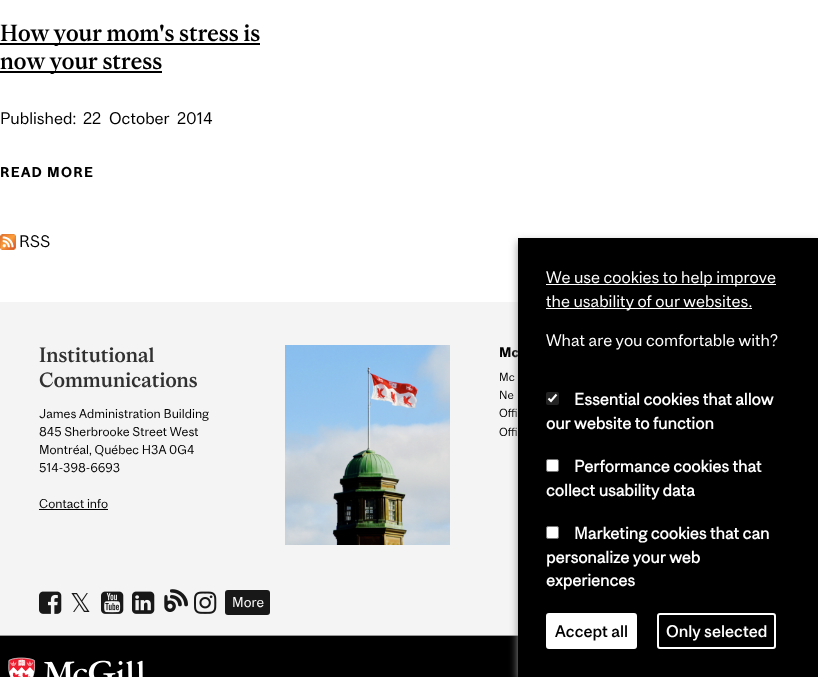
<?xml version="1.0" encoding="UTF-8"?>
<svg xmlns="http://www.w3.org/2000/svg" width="818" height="677">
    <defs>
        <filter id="blur1" x="-50%" y="-200%" width="200%" height="500%"><feGaussianBlur stdDeviation="4"/></filter>
    </defs>
    <rect width="100%" height="100%" fill="#FFFFFF"/>
    <rect x="0" y="43" width="260" height="2" fill="#000000"/>
    <text x="0" y="41" font-family="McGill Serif" font-size="21.75" font-weight="500" fill="#000000">How your mom's stress is</text>
    <rect x="0" y="71" width="162" height="2" fill="#000000"/>
    <text x="0" y="69" font-family="McGill Serif" font-size="21.75" font-weight="500" fill="#000000">now your stress</text>
    <text x="0" y="124" font-family="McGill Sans" font-size="15.7" fill="#000000">Published:</text>
    <text x="83" y="124" font-family="McGill Sans" font-size="15.7" fill="#000000">22</text>
    <text x="109" y="124" font-family="McGill Sans" font-size="15.7" fill="#000000">October</text>
    <text x="177" y="124" font-family="McGill Sans" font-size="15.7" fill="#000000">2014</text>
    <text x="0" y="177" font-family="McGill Sans" font-size="13.25" font-weight="700" letter-spacing="1.25" fill="#000000">READ MORE</text>
    <image x="0" y="234" width="16" height="16" href="img_01.png"/>
    <text x="19" y="247" font-family="McGill Sans" font-size="15.7" fill="#000000">RSS</text>
    <rect x="0" y="302" width="518" height="333" fill="#F4F4F4"/>
    <text font-family="McGill Serif" font-size="19.25" font-weight="500" fill="#313131">
        <tspan x="39" y="362">Institutional</tspan>
        <tspan x="39" y="387">Communications</tspan>
    </text>
    <text font-family="McGill Sans" font-size="12" fill="#000000">
        <tspan x="39" y="418">James Administration Building</tspan>
        <tspan x="39" y="436">845 Sherbrooke Street West</tspan>
        <tspan x="39" y="454">Montréal, Québec H3A 0G4</tspan>
        <tspan x="39" y="472">514-398-6693</tspan>
    </text>
    <text x="39" y="508" font-family="McGill Sans" font-size="12" fill="#000000">Contact info</text>
    <rect x="39" y="509" width="69" height="1" fill="#000000"/>
    <image x="285" y="345" width="165" height="200" href="img_02.png"/>
    <text x="499" y="357" font-family="McGill Sans" font-size="13" font-weight="700" fill="#000000">Mc</text>
    <text font-family="McGill Sans" font-size="11" fill="#000000">
        <tspan x="499" y="381">Mc</tspan>
        <tspan x="499" y="399">Ne</tspan>
        <tspan x="499" y="417">Offi</tspan>
        <tspan x="499" y="436">Offi</tspan>
    </text>
    <image x="39" y="591" width="23" height="23" href="img_03.png"/>
    <text x="70" y="612" font-family="DejaVu Sans" font-size="26" fill="#181818">𝕏</text>
    <image x="101" y="591" width="23" height="23" href="img_04.png"/>
    <image x="132" y="591" width="23" height="23" href="img_05.png"/>
    <image x="164" y="589" width="24" height="23" href="img_06.png"/>
    <image x="194" y="591" width="23" height="23" href="img_07.png"/>
    <rect x="225" y="590" width="45" height="25" rx="3" fill="#181818"/>
    <text x="232" y="607" font-family="McGill Sans" font-size="13.25" fill="#FEFEFE">More</text>
    <rect x="0" y="636" width="518" height="41" fill="#000000"/>
    <rect x="0" y="635" width="518" height="1" fill="#979797"/>
    <rect x="518" y="242" width="300" height="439" fill="#979799" filter="url(#blur1)"/>
    <rect x="518" y="238" width="300" height="439" fill="#000000"/>
    <rect x="546" y="284" width="230" height="1" fill="#FFFFFF"/>
    <text x="546" y="283" font-family="McGill Sans" font-size="15.7" fill="#FEFEFE">We use cookies to help improve</text>
    <rect x="546" y="308" width="206" height="1" fill="#FFFFFF"/>
    <text x="546" y="307" font-family="McGill Sans" font-size="15.7" fill="#FEFEFE">the usability of our websites.</text>
    <text x="546" y="346" font-family="McGill Sans" font-size="15.7" fill="#FEFEFE">What are you comfortable with?</text>
    <rect x="546" y="392" width="13" height="13" rx="2" fill="#232323"/>
    <path d="M 548.5 398.5 L 551 401 L 556.5 394.5" fill="none" stroke="#FFFFFF" stroke-width="2.1"/>
    <text x="574" y="405" font-family="'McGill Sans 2'" font-size="15.7" font-weight="700" fill="#FEFEFE">Essential cookies that allow</text>
    <text x="546" y="429" font-family="'McGill Sans 2'" font-size="15.7" font-weight="700" fill="#FEFEFE">our website to function</text>
    <rect x="546.5" y="459.5" width="12" height="12" rx="1.5" fill="#FFFFFF" stroke="#767676"/>
    <text x="574" y="472" font-family="'McGill Sans 2'" font-size="15.7" font-weight="700" fill="#FEFEFE">Performance cookies that</text>
    <text x="546" y="496" font-family="'McGill Sans 2'" font-size="15.7" font-weight="700" fill="#FEFEFE">collect usability data</text>
    <rect x="546.5" y="526.5" width="12" height="12" rx="1.5" fill="#FFFFFF" stroke="#767676"/>
    <text x="574" y="539" font-family="'McGill Sans 2'" font-size="15.7" font-weight="700" fill="#FEFEFE">Marketing cookies that can</text>
    <text font-family="'McGill Sans 2'" font-size="15.7" font-weight="700" fill="#FEFEFE">
        <tspan x="546" y="563">personalize your web</tspan>
        <tspan x="546" y="586">experiences</tspan>
    </text>
    <rect x="547" y="614" width="89" height="34" rx="2" fill="#FFFFFF" stroke="#FFFFFF" stroke-width="2"/>
    <text x="555" y="637" font-family="McGill Sans" font-size="15.7" font-weight="500" fill="#000000">Accept all</text>
    <rect x="658" y="614" width="117" height="34" rx="2" fill="none" stroke="#FFFFFF" stroke-width="2"/>
    <text x="666" y="637" font-family="McGill Sans" font-size="15.7" font-weight="500" fill="#FEFEFE">Only selected</text>
    <image x="8" y="657" width="135" height="20" href="img_08.png"/>
</svg>
